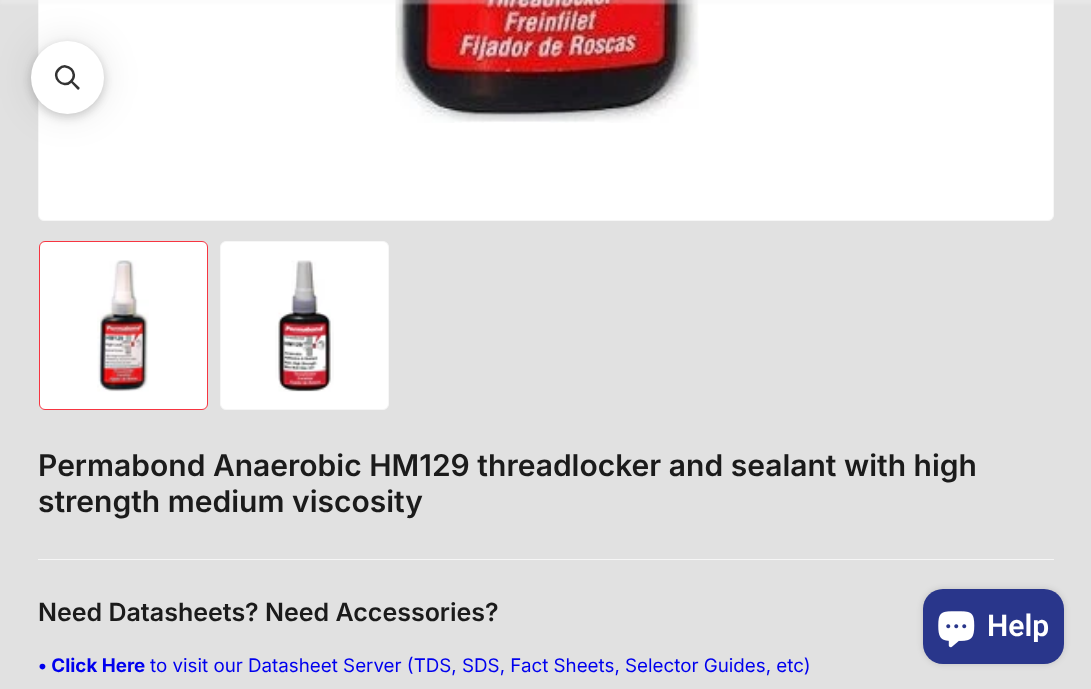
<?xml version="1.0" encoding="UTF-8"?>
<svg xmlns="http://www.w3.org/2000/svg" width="1091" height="689">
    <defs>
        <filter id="blur1" x="-50%" y="-200%" width="200%" height="500%"><feGaussianBlur stdDeviation="1"/></filter>
        <filter id="blur2" x="-50%" y="-200%" width="200%" height="500%"><feGaussianBlur stdDeviation="5"/></filter>
        <filter id="blur3" x="-50%" y="-200%" width="200%" height="500%"><feGaussianBlur stdDeviation="19"/></filter>
        <filter id="blur4" x="-50%" y="-200%" width="200%" height="500%"><feGaussianBlur stdDeviation="3"/></filter>
    </defs>
    <rect width="100%" height="100%" fill="#E1E1E1"/>
    <rect x="38.5" y="-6.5" width="1015" height="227" rx="5.5" fill="#FFFFFF" stroke="#F6F6F6"/>
    <image x="395" y="0" width="304" height="123" href="img_01.png"/>
    <rect x="0" y="-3" width="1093" height="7" fill="#F6F6F6" fill-opacity="0.3" filter="url(#blur1)"/>
    <rect x="31" y="46" width="73" height="73" rx="36.5" fill="#000000" fill-opacity="0.05" filter="url(#blur2)"/>
    <rect x="31" y="44" width="73" height="72" rx="36" fill="#000000" fill-opacity="0.15" filter="url(#blur2)"/>
    <rect x="31" y="41" width="73" height="73" rx="36.5" fill="#000000" fill-opacity="0.1" filter="url(#blur3)"/>
    <circle cx="67.5" cy="77.5" r="36.5" fill="#FFFFFF"/>
    <path d="M 59 69 C 67 61 79.5 73 71 81.5 C 63 89.5 50.5 77 59 69 Z" fill="none" stroke="#333333" stroke-width="2.5"/>
    <path d="M 70.5 82 L 72 80.5 L 79.5 87.5 C 80 89 78.5 90.5 77.5 89.5 Z" fill="#333333"/>
    <rect x="39.5" y="241.5" width="168" height="168" rx="5.5" fill="#FFFFFF" stroke="#F73541"/>
    <image x="97" y="260" width="52" height="132" href="img_02.png"/>
    <rect x="220.5" y="241.5" width="168" height="168" rx="5.5" fill="#FFFFFF" stroke="#F6F6F6"/>
    <image x="275" y="260" width="59" height="132" href="img_03.png"/>
    <rect x="38" y="559" width="1016" height="1" fill="#F6F6F6"/>
    <text font-family="Inter" font-size="30" font-weight="600" fill="#1B1B1B">
        <tspan x="38" y="476">Permabond Anaerobic HM129 threadlocker and sealant with high</tspan>
        <tspan x="38" y="512">strength medium viscosity</tspan>
    </text>
    <text x="38" y="621" font-family="Inter" font-size="25" font-weight="600" fill="#1B1B1B">Need Datasheets? Need Accessories?</text>
    <text x="38" y="672" font-family="Inter" font-size="18.75" font-weight="700" fill="#0000EE">• Click Here</text>
    <text x="150" y="672" font-family="Inter" font-size="18.75" fill="#0000EE">to visit our Datasheet Server (TDS, SDS, Fact Sheets, Selector Guides, etc)</text>
    <rect x="923" y="589" width="141" height="75" rx="20" fill="#000000" fill-opacity="0.15" filter="url(#blur4)"/>
    <rect x="923" y="589" width="141" height="75" rx="20" fill="#29368B"/>
    <image x="938" y="611" width="37" height="37" href="img_04.png"/>
    <text x="987" y="636" font-family="Roboto" font-size="30" font-weight="600" fill="#FFFFFF">Help</text>
</svg>
